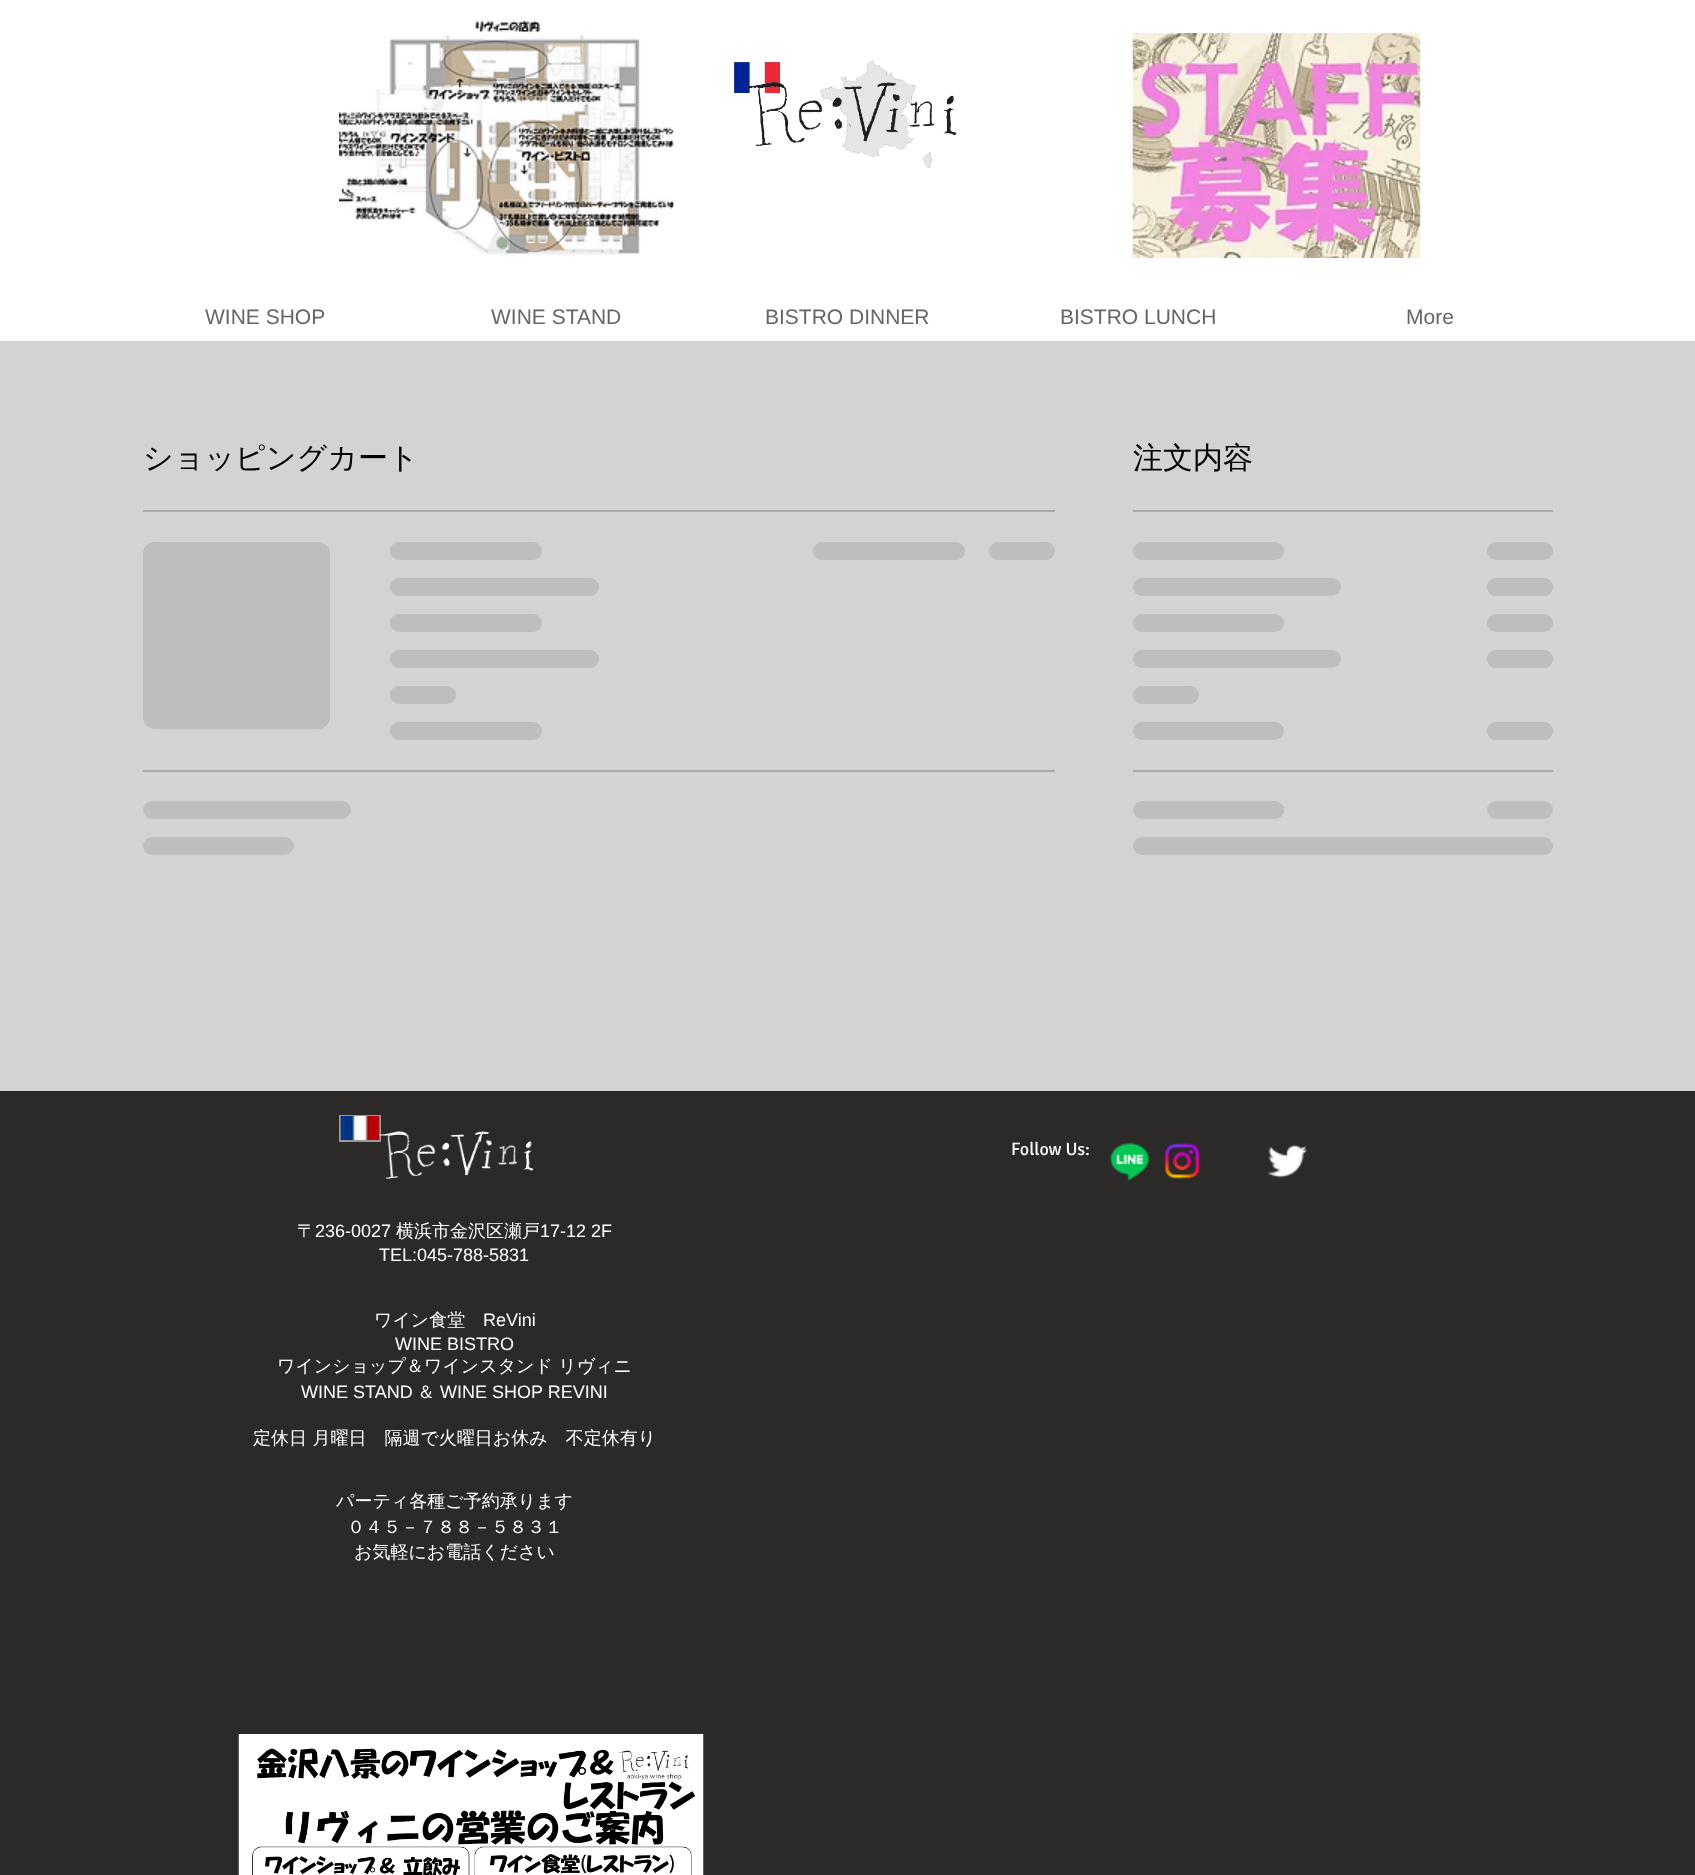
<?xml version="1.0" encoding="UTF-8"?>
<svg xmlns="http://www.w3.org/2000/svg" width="1695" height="1875">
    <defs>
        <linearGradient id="g1" gradientUnits="userSpaceOnUse" x1="143" y1="635" x2="893" y2="635"><stop offset="0.25" stop-color="#C0BEBC"/><stop offset="0.37" stop-color="#AAA9A7"/><stop offset="0.63" stop-color="#C0BEBC"/></linearGradient>
        <linearGradient id="g2" gradientUnits="userSpaceOnUse" x1="390" y1="551" x2="996" y2="551"><stop offset="0.25" stop-color="#C0BEBC"/><stop offset="0.37" stop-color="#AAA9A7"/><stop offset="0.63" stop-color="#C0BEBC"/></linearGradient>
        <linearGradient id="g3" gradientUnits="userSpaceOnUse" x1="390" y1="587" x2="1224" y2="587"><stop offset="0.25" stop-color="#C0BEBC"/><stop offset="0.37" stop-color="#AAA9A7"/><stop offset="0.63" stop-color="#C0BEBC"/></linearGradient>
        <linearGradient id="g4" gradientUnits="userSpaceOnUse" x1="390" y1="623" x2="996" y2="623"><stop offset="0.25" stop-color="#C0BEBC"/><stop offset="0.37" stop-color="#AAA9A7"/><stop offset="0.63" stop-color="#C0BEBC"/></linearGradient>
        <linearGradient id="g5" gradientUnits="userSpaceOnUse" x1="390" y1="659" x2="1224" y2="659"><stop offset="0.25" stop-color="#C0BEBC"/><stop offset="0.37" stop-color="#AAA9A7"/><stop offset="0.63" stop-color="#C0BEBC"/></linearGradient>
        <linearGradient id="g6" gradientUnits="userSpaceOnUse" x1="390" y1="695" x2="654" y2="695"><stop offset="0.25" stop-color="#C0BEBC"/><stop offset="0.37" stop-color="#AAA9A7"/><stop offset="0.63" stop-color="#C0BEBC"/></linearGradient>
        <linearGradient id="g7" gradientUnits="userSpaceOnUse" x1="390" y1="731" x2="996" y2="731"><stop offset="0.25" stop-color="#C0BEBC"/><stop offset="0.37" stop-color="#AAA9A7"/><stop offset="0.63" stop-color="#C0BEBC"/></linearGradient>
        <linearGradient id="g8" gradientUnits="userSpaceOnUse" x1="813" y1="551" x2="1419" y2="551"><stop offset="0.25" stop-color="#C0BEBC"/><stop offset="0.37" stop-color="#AAA9A7"/><stop offset="0.63" stop-color="#C0BEBC"/></linearGradient>
        <linearGradient id="g9" gradientUnits="userSpaceOnUse" x1="989" y1="551" x2="1253" y2="551"><stop offset="0.25" stop-color="#C0BEBC"/><stop offset="0.37" stop-color="#AAA9A7"/><stop offset="0.63" stop-color="#C0BEBC"/></linearGradient>
        <linearGradient id="g10" gradientUnits="userSpaceOnUse" x1="143" y1="810" x2="977" y2="810"><stop offset="0.25" stop-color="#C0BEBC"/><stop offset="0.37" stop-color="#AAA9A7"/><stop offset="0.63" stop-color="#C0BEBC"/></linearGradient>
        <linearGradient id="g11" gradientUnits="userSpaceOnUse" x1="143" y1="846" x2="749" y2="846"><stop offset="0.25" stop-color="#C0BEBC"/><stop offset="0.37" stop-color="#AAA9A7"/><stop offset="0.63" stop-color="#C0BEBC"/></linearGradient>
        <linearGradient id="g12" gradientUnits="userSpaceOnUse" x1="1133" y1="551" x2="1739" y2="551"><stop offset="0.25" stop-color="#C0BEBC"/><stop offset="0.37" stop-color="#AAA9A7"/><stop offset="0.63" stop-color="#C0BEBC"/></linearGradient>
        <linearGradient id="g13" gradientUnits="userSpaceOnUse" x1="1487" y1="551" x2="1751" y2="551"><stop offset="0.25" stop-color="#C0BEBC"/><stop offset="0.37" stop-color="#AAA9A7"/><stop offset="0.63" stop-color="#C0BEBC"/></linearGradient>
        <linearGradient id="g14" gradientUnits="userSpaceOnUse" x1="1133" y1="587" x2="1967" y2="587"><stop offset="0.25" stop-color="#C0BEBC"/><stop offset="0.37" stop-color="#AAA9A7"/><stop offset="0.63" stop-color="#C0BEBC"/></linearGradient>
        <linearGradient id="g15" gradientUnits="userSpaceOnUse" x1="1487" y1="587" x2="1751" y2="587"><stop offset="0.25" stop-color="#C0BEBC"/><stop offset="0.37" stop-color="#AAA9A7"/><stop offset="0.63" stop-color="#C0BEBC"/></linearGradient>
        <linearGradient id="g16" gradientUnits="userSpaceOnUse" x1="1133" y1="623" x2="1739" y2="623"><stop offset="0.25" stop-color="#C0BEBC"/><stop offset="0.37" stop-color="#AAA9A7"/><stop offset="0.63" stop-color="#C0BEBC"/></linearGradient>
        <linearGradient id="g17" gradientUnits="userSpaceOnUse" x1="1487" y1="623" x2="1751" y2="623"><stop offset="0.25" stop-color="#C0BEBC"/><stop offset="0.37" stop-color="#AAA9A7"/><stop offset="0.63" stop-color="#C0BEBC"/></linearGradient>
        <linearGradient id="g18" gradientUnits="userSpaceOnUse" x1="1133" y1="659" x2="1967" y2="659"><stop offset="0.25" stop-color="#C0BEBC"/><stop offset="0.37" stop-color="#AAA9A7"/><stop offset="0.63" stop-color="#C0BEBC"/></linearGradient>
        <linearGradient id="g19" gradientUnits="userSpaceOnUse" x1="1487" y1="659" x2="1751" y2="659"><stop offset="0.25" stop-color="#C0BEBC"/><stop offset="0.37" stop-color="#AAA9A7"/><stop offset="0.63" stop-color="#C0BEBC"/></linearGradient>
        <linearGradient id="g20" gradientUnits="userSpaceOnUse" x1="1133" y1="695" x2="1397" y2="695"><stop offset="0.25" stop-color="#C0BEBC"/><stop offset="0.37" stop-color="#AAA9A7"/><stop offset="0.63" stop-color="#C0BEBC"/></linearGradient>
        <linearGradient id="g21" gradientUnits="userSpaceOnUse" x1="1133" y1="731" x2="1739" y2="731"><stop offset="0.25" stop-color="#C0BEBC"/><stop offset="0.37" stop-color="#AAA9A7"/><stop offset="0.63" stop-color="#C0BEBC"/></linearGradient>
        <linearGradient id="g22" gradientUnits="userSpaceOnUse" x1="1487" y1="731" x2="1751" y2="731"><stop offset="0.25" stop-color="#C0BEBC"/><stop offset="0.37" stop-color="#AAA9A7"/><stop offset="0.63" stop-color="#C0BEBC"/></linearGradient>
        <linearGradient id="g23" gradientUnits="userSpaceOnUse" x1="1133" y1="810" x2="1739" y2="810"><stop offset="0.25" stop-color="#C0BEBC"/><stop offset="0.37" stop-color="#AAA9A7"/><stop offset="0.63" stop-color="#C0BEBC"/></linearGradient>
        <linearGradient id="g24" gradientUnits="userSpaceOnUse" x1="1487" y1="810" x2="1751" y2="810"><stop offset="0.25" stop-color="#C0BEBC"/><stop offset="0.37" stop-color="#AAA9A7"/><stop offset="0.63" stop-color="#C0BEBC"/></linearGradient>
        <linearGradient id="g25" gradientUnits="userSpaceOnUse" x1="1133" y1="846" x2="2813" y2="846"><stop offset="0.25" stop-color="#C0BEBC"/><stop offset="0.37" stop-color="#AAA9A7"/><stop offset="0.63" stop-color="#C0BEBC"/></linearGradient>
    </defs>
    <rect width="100%" height="100%" fill="#D5D3D1"/>
    <rect x="0" y="0" width="1695" height="341" fill="#FFFFFF"/>
    <image x="339" y="20" width="335" height="235" href="img_01.png"/>
    <image x="734" y="60" width="223" height="108" href="img_02.png"/>
    <image x="1132" y="33" width="289" height="225" href="img_03.png"/>
    <text x="205" y="324" font-family="Liberation Sans" font-size="21" fill="#666666">WINE SHOP</text>
    <text x="491" y="324" font-family="Liberation Sans" font-size="21" fill="#666666">WINE STAND</text>
    <text x="765" y="324" font-family="Liberation Sans" font-size="21" fill="#666666">BISTRO DINNER</text>
    <text x="1060" y="324" font-family="Liberation Sans" font-size="21" fill="#666666">BISTRO LUNCH</text>
    <text x="1406" y="324" font-family="Liberation Sans" font-size="21" fill="#666666">More</text>
    <rect x="143" y="510" width="912" height="2" fill="#AAA9A7"/>
    <text x="143" y="468" font-family="WenQuanYi Zen Hei" font-size="30" font-weight="500" fill="#000000">ショッピングカート</text>
    <rect x="143" y="542" width="187" height="187" rx="12" fill="url(#g1)"/>
    <rect x="390" y="542" width="152" height="18" rx="9" fill="url(#g2)"/>
    <rect x="390" y="578" width="209" height="18" rx="9" fill="url(#g3)"/>
    <rect x="390" y="614" width="152" height="18" rx="9" fill="url(#g4)"/>
    <rect x="390" y="650" width="209" height="18" rx="9" fill="url(#g5)"/>
    <rect x="390" y="686" width="66" height="18" rx="9" fill="url(#g6)"/>
    <rect x="390" y="722" width="152" height="18" rx="9" fill="url(#g7)"/>
    <rect x="813" y="542" width="152" height="18" rx="9" fill="url(#g8)"/>
    <rect x="989" y="542" width="66" height="18" rx="9" fill="url(#g9)"/>
    <rect x="143" y="770" width="912" height="2" fill="#AAA9A7"/>
    <rect x="143" y="801" width="208" height="18" rx="9" fill="url(#g10)"/>
    <rect x="143" y="837" width="151" height="18" rx="9" fill="url(#g11)"/>
    <rect x="1133" y="510" width="420" height="2" fill="#AAA9A7"/>
    <text x="1133" y="468" font-family="WenQuanYi Zen Hei" font-size="30" font-weight="500" fill="#000000">注文内容</text>
    <rect x="1133" y="542" width="151" height="18" rx="9" fill="url(#g12)"/>
    <rect x="1487" y="542" width="66" height="18" rx="9" fill="url(#g13)"/>
    <rect x="1133" y="578" width="208" height="18" rx="9" fill="url(#g14)"/>
    <rect x="1487" y="578" width="66" height="18" rx="9" fill="url(#g15)"/>
    <rect x="1133" y="614" width="151" height="18" rx="9" fill="url(#g16)"/>
    <rect x="1487" y="614" width="66" height="18" rx="9" fill="url(#g17)"/>
    <rect x="1133" y="650" width="208" height="18" rx="9" fill="url(#g18)"/>
    <rect x="1487" y="650" width="66" height="18" rx="9" fill="url(#g19)"/>
    <rect x="1133" y="686" width="66" height="18" rx="9" fill="url(#g20)"/>
    <rect x="1133" y="722" width="151" height="18" rx="9" fill="url(#g21)"/>
    <rect x="1487" y="722" width="66" height="18" rx="9" fill="url(#g22)"/>
    <rect x="1133" y="770" width="420" height="2" fill="#AAA9A7"/>
    <rect x="1133" y="801" width="151" height="18" rx="9" fill="url(#g23)"/>
    <rect x="1487" y="801" width="66" height="18" rx="9" fill="url(#g24)"/>
    <rect x="1133" y="837" width="420" height="18" rx="9" fill="url(#g25)"/>
    <rect x="0" y="1091" width="1695" height="784" fill="#2B2A28"/>
    <rect x="339" y="1115" width="42" height="27" fill="#999999"/>
    <image x="340" y="1116" width="40" height="24" href="img_04.png"/>
    <image x="379" y="1131" width="155" height="48" href="img_05.png"/>
    <text x="1011" y="1155" font-family="Signika" font-size="18" fill="#FFFFFF">Follow Us:</text>
    <image x="1109" y="1142" width="41" height="39" href="img_06.png"/>
    <image x="1164" y="1142" width="37" height="38" href="img_07.png"/>
    <image x="1267" y="1144" width="41" height="34" href="img_08.png"/>
    <text x="297" y="1237" font-family="WenQuanYi Zen Hei" font-size="18" font-weight="500" fill="#FFFFFF">〒</text>
    <text x="315" y="1237" font-family="Liberation Sans" font-size="18" fill="#FFFFFF">236-0027</text>
    <text x="396" y="1237" font-family="WenQuanYi Zen Hei" font-size="18" font-weight="500" fill="#FFFFFF">横浜市金沢区瀬戸</text>
    <text x="540" y="1237" font-family="Liberation Sans" font-size="18" fill="#FFFFFF">17-12 2F</text>
    <text x="379" y="1261" font-family="Liberation Sans" font-size="18" fill="#FFFFFF">TEL:045-788-5831</text>
    <text x="374" y="1326" font-family="WenQuanYi Zen Hei" font-size="18" font-weight="500" fill="#FFFFFF">ワイン食堂</text>
    <text x="483" y="1326" font-family="Liberation Sans" font-size="18" fill="#FFFFFF">ReVini</text>
    <text x="395" y="1350" font-family="Liberation Sans" font-size="18" fill="#FFFFFF">WINE BISTRO</text>
    <text x="277" y="1372" font-family="WenQuanYi Zen Hei" font-size="18" font-weight="500" fill="#FFFFFF">ワインショップ＆ワインスタンド リヴィニ</text>
    <text x="301" y="1398" font-family="Liberation Sans" font-size="18" fill="#FFFFFF">WINE STAND</text>
    <text x="417" y="1398" font-family="WenQuanYi Zen Hei" font-size="18" font-weight="500" fill="#FFFFFF">＆</text>
    <text x="440" y="1398" font-family="Liberation Sans" font-size="18" fill="#FFFFFF">WINE SHOP REVINI</text>
    <text x="253" y="1444" font-family="WenQuanYi Zen Hei" font-size="18" font-weight="500" fill="#FFFFFF">定休日 月曜日　隔週で火曜日お休み　不定休有り</text>
    <text x="336" y="1507" font-family="WenQuanYi Zen Hei" font-size="18" font-weight="500" fill="#FFFFFF">パーティ各種ご予約承ります</text>
    <text x="347" y="1533" font-family="WenQuanYi Zen Hei" font-size="18" font-weight="500" fill="#FFFFFF">０４５－７８８－５８３１</text>
    <text x="354" y="1558" font-family="WenQuanYi Zen Hei" font-size="18" font-weight="500" fill="#FFFFFF">お気軽にお電話ください</text>
    <image x="238" y="1734" width="466" height="141" href="img_09.png"/>
</svg>
